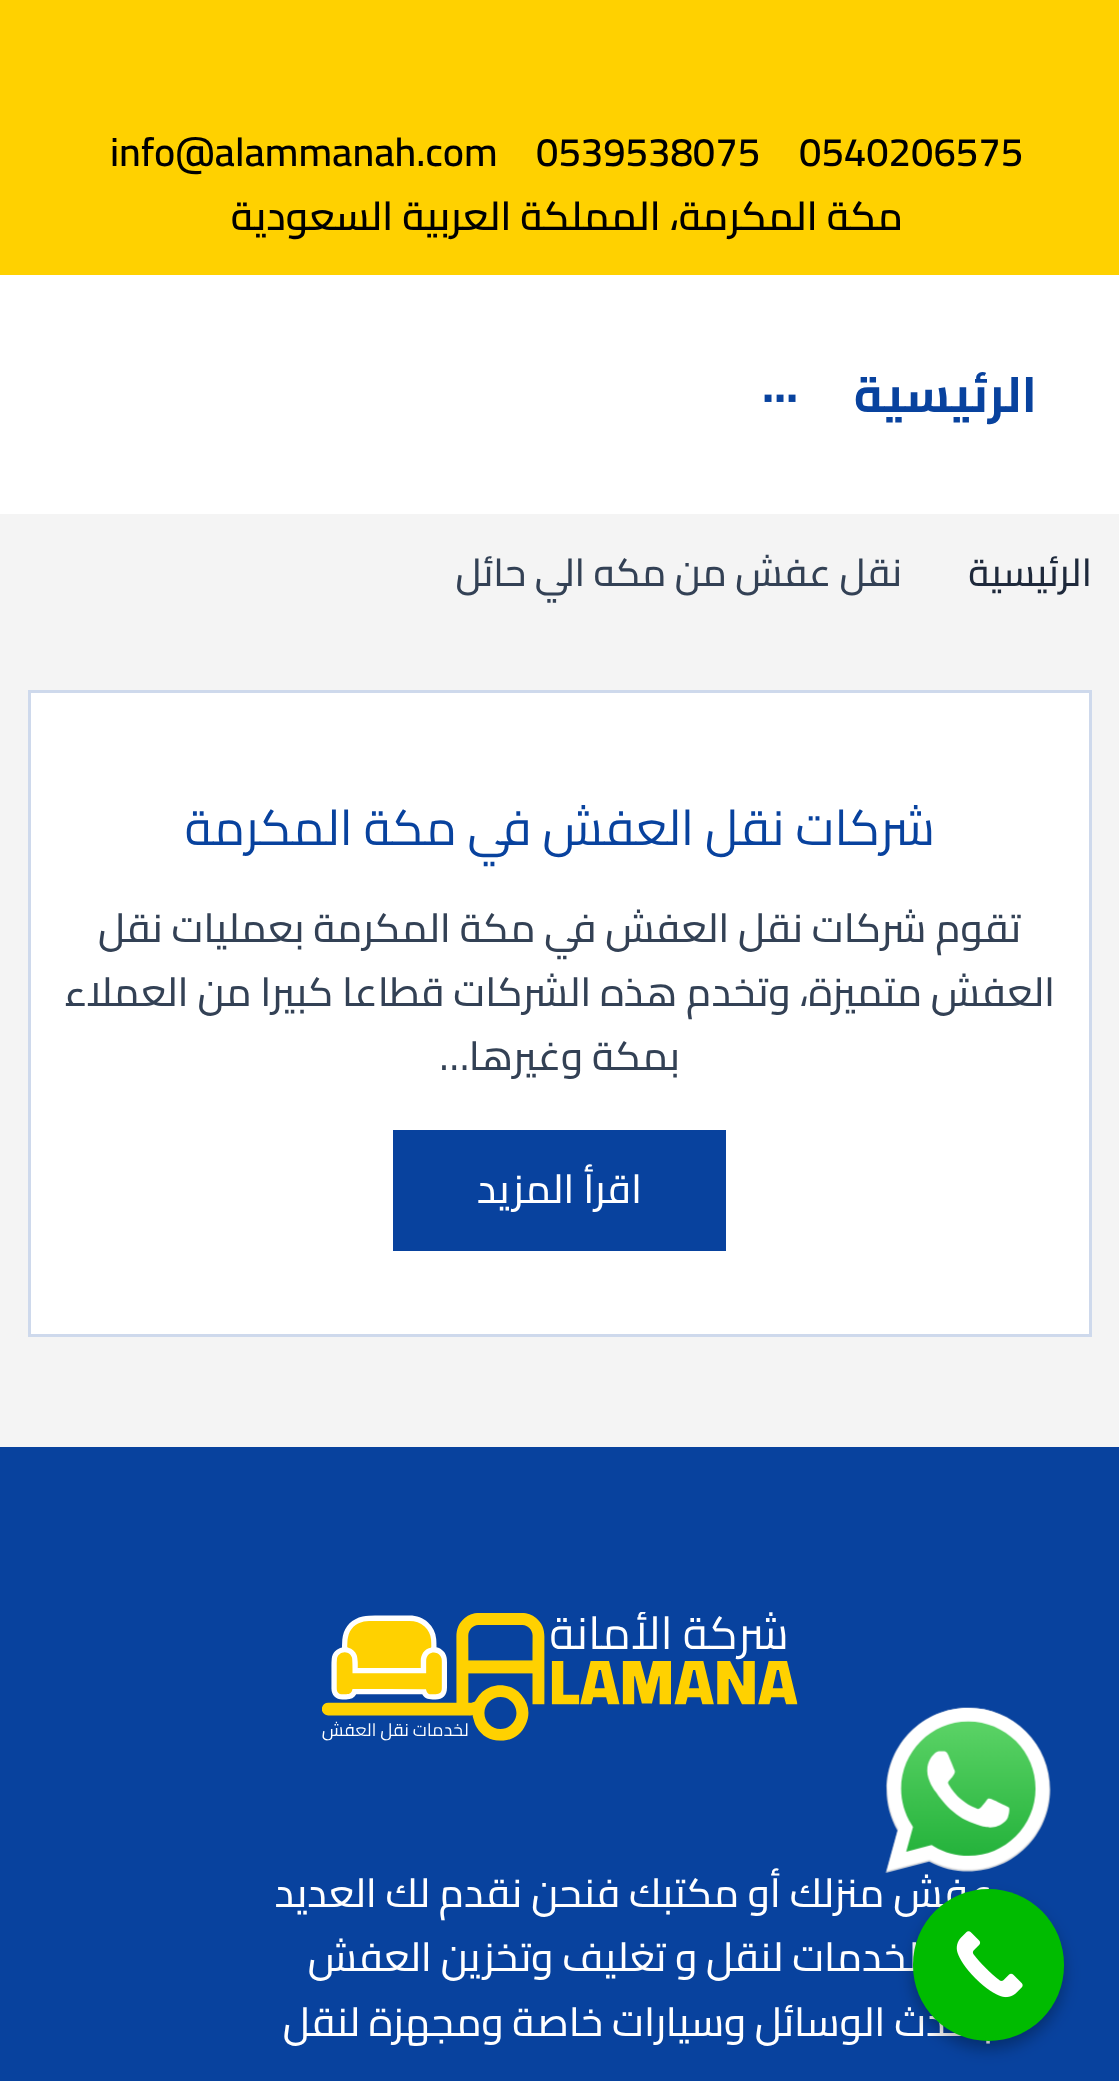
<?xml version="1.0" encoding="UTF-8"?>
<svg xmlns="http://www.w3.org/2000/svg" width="1119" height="2081">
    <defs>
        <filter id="blur1" x="-50%" y="-200%" width="200%" height="500%"><feGaussianBlur stdDeviation="8"/></filter>
    </defs>
    <rect width="100%" height="100%" fill="#FFFFFF"/>
    <rect x="0" y="0" width="1119" height="275" fill="#FFD100"/>
    <text x="799" y="166" font-family="Cairo" font-size="40.1" font-weight="600" fill="#000000">0540206575</text>
    <text x="536" y="166" font-family="Cairo" font-size="40.1" font-weight="600" fill="#000000">0539538075</text>
    <text x="110" y="166" font-family="Cairo" font-size="40.1" font-weight="600" fill="#000000">info@alammanah.com</text>
    <text x="903" y="230" font-family="Cairo" font-size="40.1" font-weight="600" direction="rtl" fill="#000000">مكة المكرمة، المملكة العربية السعودية</text>
    <text x="1037" y="412" font-family="Cairo" font-size="49.5" font-weight="700" direction="rtl" fill="#08429E">الرئيسية</text>
    <text x="762" y="412" font-family="Cairo" font-size="49.5" font-weight="700" fill="#08429E">···</text>
    <rect x="0" y="514" width="1119" height="933" fill="#F4F4F4"/>
    <text x="1092" y="586" font-family="Cairo" font-size="38.5" font-weight="500" direction="rtl" fill="#1E293B">الرئيسية</text>
    <text x="902" y="586" font-family="Cairo" font-size="38.5" font-weight="500" direction="rtl" fill="#334155">نقل عفش من مكه الي حائل</text>
    <rect x="29.5" y="691.5" width="1061" height="644" fill="#FFFFFF" stroke="#CED9EC" stroke-width="3"/>
    <text x="935" y="845" font-family="Cairo" font-size="49.5" direction="rtl" fill="#08429E">شركات نقل العفش في مكة المكرمة</text>
    <text x="1021" y="942" font-family="Cairo" font-size="40.1" font-weight="500" direction="rtl" fill="#334155">تقوم شركات نقل العفش في مكة المكرمة بعمليات نقل</text>
    <text x="1055" y="1006" font-family="Cairo" font-size="40.1" font-weight="500" direction="rtl" fill="#334155">العفش متميزة، وتخدم هذه الشركات قطاعا كبيرا من العملاء</text>
    <text x="680" y="1070" font-family="Cairo" font-size="40.1" font-weight="500" direction="rtl" fill="#334155">بمكة وغيرها…</text>
    <rect x="393" y="1130" width="333" height="121" fill="#08429E"/>
    <text x="642" y="1203" font-family="Cairo" font-size="40.1" font-weight="500" direction="rtl" fill="#FFFFFF">اقرأ المزيد</text>
    <rect x="0" y="1447" width="1119" height="634" fill="#08429E"/>
    <image x="322" y="1612" width="476" height="129" href="img_01.png"/>
    <text font-family="Cairo" font-size="40.1" font-weight="500" direction="rtl" fill="#FFFFFF">
        <tspan x="993" y="1907">عفش منزلك أو مكتبك فنحن نقدم لك العديد</tspan>
        <tspan x="993" y="1971">من الخدمات لنقل و تغليف وتخزين العفش</tspan>
        <tspan x="993" y="2036">باحدث الوسائل وسيارات خاصة ومجهزة لنقل</tspan>
    </text>
    <image x="885" y="1707" width="166" height="166" href="img_02.png"/>
    <rect x="913" y="1898" width="151" height="151" rx="75.5" fill="#000000" fill-opacity="0.3" filter="url(#blur1)"/>
    <rect x="913" y="1889" width="151" height="152" rx="75.5" fill="#00BB00"/>
    <image x="956" y="1931" width="67" height="67" href="img_03.png"/>
</svg>
